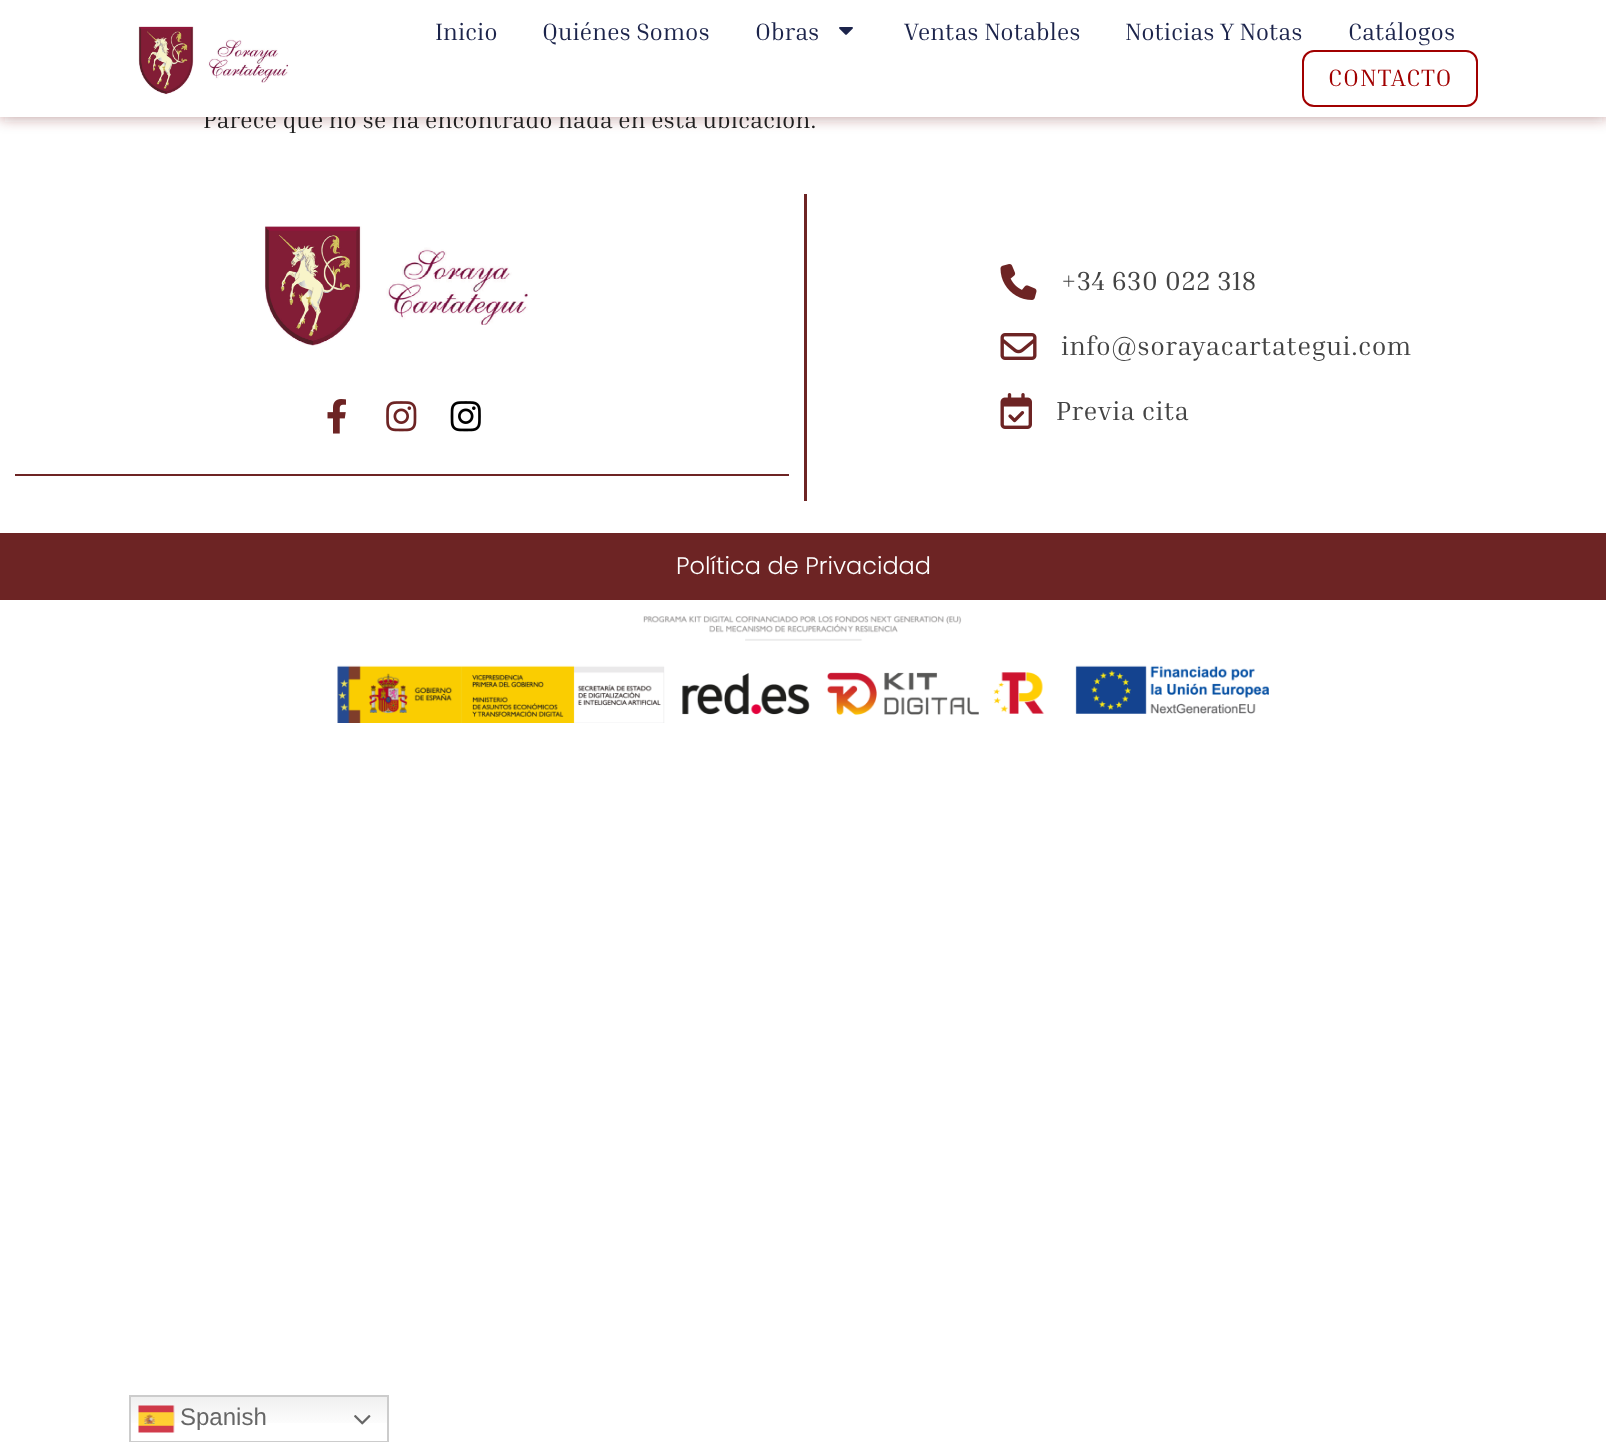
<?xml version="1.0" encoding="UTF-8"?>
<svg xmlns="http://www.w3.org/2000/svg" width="1606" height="1442">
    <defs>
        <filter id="blur1" x="-50%" y="-200%" width="200%" height="500%"><feGaussianBlur stdDeviation="7.5"/></filter>
        <linearGradient id="g1" gradientUnits="userSpaceOnUse" x1="259" y1="1395" x2="259" y2="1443"><stop offset="0" stop-color="#EFEFEF"/><stop offset="0.7" stop-color="#FFFFFF"/></linearGradient>
    </defs>
    <rect width="100%" height="100%" fill="#FFFFFF"/>
    <rect x="0" y="0" width="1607" height="117" fill="#6D2424" fill-opacity="0.48" filter="url(#blur1)"/>
    <text x="203" y="128" font-family="Inria Serif" font-size="24" fill="#1F1F1F">Parece que no se ha encontrado nada en esta ubicación.</text>
    <rect x="0" y="0" width="1606" height="117" fill="#FFFFFF"/>
    <image x="138" y="26" width="151" height="69" href="img_01.png"/>
    <text x="435" y="40" font-family="Inria Serif" font-size="24" fill="#1C244B">Inicio</text>
    <text x="542" y="40" font-family="Inria Serif" font-size="24" fill="#1C244B">Quiénes Somos</text>
    <text x="755" y="40" font-family="Inria Serif" font-size="24" fill="#1C244B">Obras</text>
    <image x="839" y="27" width="14" height="8" href="img_02.png"/>
    <text x="904" y="40" font-family="Inria Serif" font-size="24" fill="#1C244B">Ventas Notables</text>
    <text x="1125" y="40" font-family="Inria Serif" font-size="24" fill="#1C244B">Noticias Y Notas</text>
    <text x="1348" y="40" font-family="Inria Serif" font-size="24" fill="#1C244B">Catálogos</text>
    <rect x="1303" y="51" width="174" height="55" rx="11" fill="none" stroke="#A10000" stroke-width="2"/>
    <text x="1328" y="86" font-family="Inria Serif" font-size="24" letter-spacing="1" fill="#A10000">CONTACTO</text>
    <image x="264" y="226" width="264" height="120" href="img_03.png"/>
    <image x="327" y="399" width="19" height="35" href="img_04.png"/>
    <image x="386" y="401" width="31" height="31" href="img_05.png"/>
    <image x="450" y="401" width="31" height="31" href="img_06.png"/>
    <rect x="15" y="474" width="774" height="2" fill="#6D2424"/>
    <rect x="804" y="194" width="3" height="307" fill="#6D2424"/>
    <image x="1000" y="264" width="37" height="36" href="img_07.png"/>
    <text x="1061" y="290" font-family="Inria Serif" font-size="26.4" letter-spacing="0.5" fill="#444444">+34 630 022 318</text>
    <image x="1000" y="333" width="37" height="27" href="img_08.png"/>
    <text x="1061" y="355" font-family="Inria Serif" font-size="26.4" letter-spacing="0.5" fill="#444444">info@sorayacartategui.com</text>
    <image x="1000" y="393" width="32" height="36" href="img_09.png"/>
    <text x="1056" y="420" font-family="Inria Serif" font-size="26.4" letter-spacing="0.5" fill="#444444">Previa cita</text>
    <rect x="0" y="533" width="1606" height="67" fill="#6D2424"/>
    <text x="676" y="574" font-family="Poppins" font-size="24" font-weight="300" fill="#FFFFFF">Política de Privacidad</text>
    <image x="337" y="616" width="932" height="107" href="img_10.png"/>
    <rect x="131" y="1397" width="256" height="26" fill="url(#g1)"/>
    <rect x="130" y="1396" width="258" height="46" fill="none" stroke="#CCCCCC" stroke-width="2"/>
    <image x="138" y="1405" width="37" height="28" href="img_11.png"/>
    <text x="180" y="1425" font-family="Liberation Sans" font-size="24" fill="#666666">Spanish</text>
    <image x="354" y="1415" width="17" height="10" href="img_12.png"/>
</svg>
